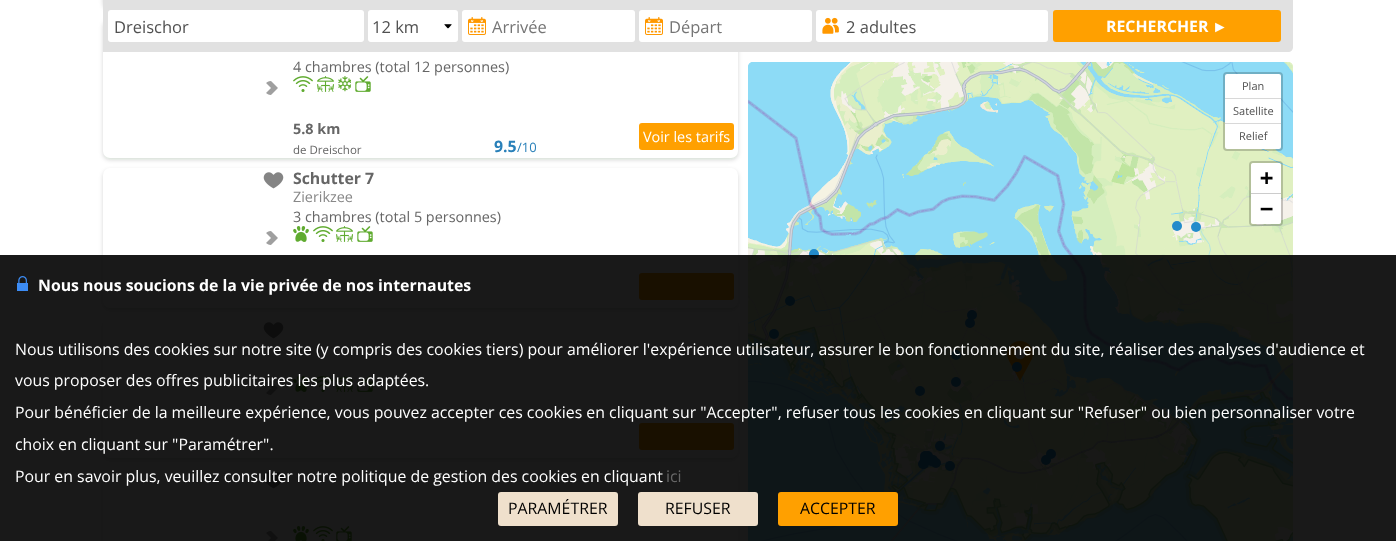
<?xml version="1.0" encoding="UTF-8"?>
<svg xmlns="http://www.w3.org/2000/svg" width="1396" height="541">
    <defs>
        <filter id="blur1" x="-50%" y="-200%" width="200%" height="500%"><feGaussianBlur stdDeviation="2"/></filter>
    </defs>
    <rect width="100%" height="100%" fill="#FFFFFF"/>
    <rect x="103" y="-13" width="635" height="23" rx="7" fill="#061F18" fill-opacity="0.16" filter="url(#blur1)"/>
    <rect x="103" y="20" width="635" height="140" rx="7" fill="#061F18" fill-opacity="0.16" filter="url(#blur1)"/>
    <rect x="103" y="18" width="635" height="140" rx="7" fill="#FFFFFF"/>
    <path d="M 103 0 H 1293 V 47 C 1293 50 1291 52 1288 52 H 103 Z" fill="#E1E1E1"/>
    <rect x="108" y="10" width="256" height="32" rx="3" fill="#FFFFFF"/>
    <text x="114" y="33" font-family="Open Sans" font-size="16.5" fill="#505050">Dreischor</text>
    <rect x="368" y="10" width="90" height="32" rx="3" fill="#FFFFFF"/>
    <image x="444" y="24" width="8" height="5" href="img_01.png"/>
    <text x="372" y="33" font-family="Open Sans" font-size="16.5" fill="#505050">12 km</text>
    <rect x="462" y="10" width="173" height="32" rx="3" fill="#FFFFFF"/>
    <image x="468" y="17" width="18" height="18" href="img_02.png"/>
    <text x="492" y="33" font-family="Open Sans" font-size="16.5" fill="#757575">Arrivée</text>
    <rect x="639" y="10" width="173" height="32" rx="3" fill="#FFFFFF"/>
    <image x="645" y="17" width="18" height="18" href="img_02.png"/>
    <text x="669" y="33" font-family="Open Sans" font-size="16.5" fill="#757575">Départ</text>
    <rect x="816" y="10" width="232" height="32" rx="3" fill="#FFFFFF"/>
    <image x="822" y="17" width="17" height="17" href="img_03.png"/>
    <text x="846" y="33" font-family="Open Sans" font-size="16.5" fill="#505050">2 adultes</text>
    <rect x="1053" y="10" width="228" height="32" rx="3" fill="#FFA000"/>
    <text x="1106" y="32" font-family="Open Sans" font-size="15.85" font-weight="700" fill="#FFFFFF">RECHERCHER</text>
    <text x="1212" y="32" font-family="Liberation Sans" font-size="15.85" font-weight="700" fill="#FFFFFF">►</text>
    <image x="266" y="81" width="12" height="14" href="img_04.png"/>
    <text x="293" y="72" font-family="Open Sans" font-size="14.4" fill="#666666">4 chambres (total 12 personnes)</text>
    <image x="293" y="76" width="20" height="16" href="img_05.png"/>
    <image x="317" y="76" width="17" height="16" href="img_06.png"/>
    <image x="338" y="76" width="13" height="16" href="img_07.png"/>
    <image x="355" y="76" width="16" height="16" href="img_08.png"/>
    <text x="293" y="134" font-family="Open Sans" font-size="14.4" font-weight="700" fill="#666666">5.8 km</text>
    <text x="293" y="154" font-family="Open Sans" font-size="11.5" fill="#666666">de Dreischor</text>
    <rect x="639" y="123" width="95" height="27" rx="3" fill="#FFA000"/>
    <text x="643" y="142" font-family="Open Sans" font-size="14.4" fill="#FFFFFF">Voir les tarifs</text>
    <text x="494" y="152" font-family="Open Sans" font-size="15.85" font-weight="700" fill="#2980B9">9.5</text>
    <text x="517" y="152" font-family="Open Sans" font-size="13" fill="#2980B9">/10</text>
    <rect x="103" y="170" width="635" height="140" rx="7" fill="#061F18" fill-opacity="0.16" filter="url(#blur1)"/>
    <rect x="103" y="168" width="635" height="140" rx="7" fill="#FFFFFF"/>
    <image x="263" y="172" width="21" height="17" href="img_09.png"/>
    <image x="266" y="231" width="12" height="14" href="img_04.png"/>
    <text x="293" y="184" font-family="Open Sans" font-size="15.85" font-weight="700" fill="#666666">Schutter 7</text>
    <text x="293" y="202" font-family="Open Sans" font-size="14.4" fill="#888888">Zierikzee</text>
    <text x="293" y="222" font-family="Open Sans" font-size="14.4" fill="#666666">3 chambres (total 5 personnes)</text>
    <image x="293" y="226" width="16" height="16" href="img_10.png"/>
    <image x="313" y="226" width="20" height="16" href="img_05.png"/>
    <image x="336" y="226" width="17" height="16" href="img_06.png"/>
    <image x="357" y="226" width="16" height="16" href="img_08.png"/>
    <rect x="639" y="273" width="95" height="27" rx="3" fill="#FFA000"/>
    <rect x="103" y="320" width="635" height="140" rx="7" fill="#061F18" fill-opacity="0.16" filter="url(#blur1)"/>
    <rect x="103" y="318" width="635" height="140" rx="7" fill="#FFFFFF"/>
    <image x="263" y="322" width="21" height="17" href="img_09.png"/>
    <image x="266" y="381" width="12" height="14" href="img_04.png"/>
    <image x="293" y="376" width="16" height="16" href="img_10.png"/>
    <image x="313" y="376" width="20" height="16" href="img_05.png"/>
    <image x="336" y="376" width="17" height="16" href="img_06.png"/>
    <image x="357" y="376" width="16" height="16" href="img_08.png"/>
    <rect x="639" y="423" width="95" height="27" rx="3" fill="#FFA000"/>
    <rect x="103" y="470" width="635" height="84" rx="7" fill="#061F18" fill-opacity="0.16" filter="url(#blur1)"/>
    <rect x="103" y="468" width="635" height="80" rx="7" fill="#FFFFFF"/>
    <image x="263" y="472" width="21" height="17" href="img_09.png"/>
    <image x="266" y="531" width="12" height="10" href="img_11.png"/>
    <image x="293" y="526" width="16" height="15" href="img_12.png"/>
    <image x="313" y="526" width="20" height="15" href="img_13.png"/>
    <image x="336" y="526" width="16" height="15" href="img_14.png"/>
    <image x="748" y="62" width="545" height="5" href="img_15.png"/>
    <image x="748" y="62" width="545" height="479" href="img_16.png"/>
    <rect x="1225" y="74" width="56" height="75" rx="2" fill="#FFFFFF"/>
    <rect x="1224" y="73" width="58" height="77" rx="3" fill="none" stroke="#000000" stroke-opacity="0.2" stroke-width="2"/>
    <rect x="1225" y="98" width="56" height="1" fill="#D8D8D8"/>
    <text x="1242" y="90" font-family="Open Sans" font-size="11" fill="#505050">Plan</text>
    <rect x="1225" y="123" width="56" height="1" fill="#D8D8D8"/>
    <text x="1233" y="115" font-family="Open Sans" font-size="11" fill="#505050">Satellite</text>
    <text x="1239" y="140" font-family="Open Sans" font-size="11" fill="#505050">Relief</text>
    <rect x="1250" y="162" width="32" height="63" rx="3" fill="none" stroke="#000000" stroke-opacity="0.2" stroke-width="2"/>
    <path d="M 1253 163 H 1279 C 1280 163 1281 164 1281 165 V 194 H 1251 V 165 C 1251 164 1252 163 1253 163 Z" fill="#FFFFFF"/>
    <rect x="1251" y="193" width="30" height="1" fill="#CCCCCC"/>
    <text x="1260" y="185" font-family="DejaVu Sans Mono" font-size="22" font-weight="700" fill="#000000">+</text>
    <path d="M 1251 194 H 1281 V 222 C 1281 223 1280 224 1279 224 H 1253 C 1252 224 1251 223 1251 222 Z" fill="#FFFFFF"/>
    <text x="1260" y="216" font-family="DejaVu Sans Mono" font-size="22" font-weight="700" fill="#000000">−</text>
    <circle cx="1177" cy="226" r="5" fill="#238BCB"/>
    <circle cx="1196" cy="227" r="5" fill="#238BCB"/>
    <circle cx="814" cy="254" r="5" fill="#238BCB"/>
    <circle cx="790" cy="301" r="5" fill="#238BCB"/>
    <circle cx="972" cy="315" r="5" fill="#238BCB"/>
    <circle cx="970" cy="323" r="5" fill="#238BCB"/>
    <circle cx="774" cy="334" r="5" fill="#238BCB"/>
    <circle cx="956" cy="355" r="5" fill="#238BCB"/>
    <image x="1007" y="341" width="26" height="40" href="img_17.png"/>
    <circle cx="1017" cy="367" r="5" fill="#238BCB"/>
    <circle cx="956" cy="382" r="5" fill="#238BCB"/>
    <circle cx="920" cy="391" r="5" fill="#238BCB"/>
    <circle cx="940" cy="446" r="5" fill="#238BCB"/>
    <circle cx="928" cy="456" r="5" fill="#238BCB"/>
    <circle cx="925" cy="456" r="5" fill="#238BCB"/>
    <circle cx="1051" cy="454" r="5" fill="#238BCB"/>
    <circle cx="927" cy="457" r="5" fill="#238BCB"/>
    <circle cx="925" cy="459" r="5" fill="#238BCB"/>
    <circle cx="933" cy="460" r="5" fill="#238BCB"/>
    <circle cx="931" cy="460" r="5" fill="#238BCB"/>
    <circle cx="1046" cy="460" r="5" fill="#238BCB"/>
    <circle cx="931" cy="461" r="5" fill="#238BCB"/>
    <circle cx="924" cy="464" r="5" fill="#238BCB"/>
    <circle cx="923" cy="464" r="5" fill="#238BCB"/>
    <circle cx="936" cy="463" r="5" fill="#238BCB"/>
    <circle cx="950" cy="466" r="5" fill="#238BCB"/>
    <rect x="0" y="255" width="1396" height="286" fill="#000000" fill-opacity="0.9"/>
    <image x="17" y="276" width="11" height="15" href="img_18.png"/>
    <text x="38" y="291" font-family="Open Sans" font-size="15.85" font-weight="700" fill="#FFFFFF">Nous nous soucions de la vie privée de nos internautes</text>
    <text font-family="Open Sans" font-size="15.85" fill="#FFFFFF">
        <tspan x="15" y="355">Nous utilisons des cookies sur notre site (y compris des cookies tiers) pour améliorer l'expérience utilisateur, assurer le bon fonctionnement du site, réaliser des analyses d'audience et</tspan>
        <tspan x="15" y="386">vous proposer des offres publicitaires les plus adaptées.</tspan>
    </text>
    <text x="15" y="418" font-family="Open Sans" font-size="15.85" fill="#FFFFFF">Pour bénéficier de la meilleure expérience, vous pouvez accepter ces cookies en cliquant sur "Accepter", refuser tous les cookies en cliquant sur "Refuser" ou bien personnaliser votre</text>
    <text x="15" y="450" font-family="Open Sans" font-size="15.85" fill="#FFFFFF">choix en cliquant sur "Paramétrer".</text>
    <text x="15" y="482" font-family="Open Sans" font-size="15.85" fill="#FFFFFF">Pour en savoir plus, veuillez consulter notre politique de gestion des cookies en cliquant</text>
    <text x="666" y="482" font-family="Open Sans" font-size="15.85" fill="#666666">ici</text>
    <rect x="498" y="492" width="120" height="34" rx="3" fill="#EFE0CC"/>
    <text x="508" y="514" font-family="Open Sans" font-size="15.85" fill="#000000">PARAMÉTRER</text>
    <rect x="638" y="492" width="120" height="34" rx="3" fill="#EFE0CC"/>
    <text x="665" y="514" font-family="Open Sans" font-size="15.85" fill="#000000">REFUSER</text>
    <rect x="778" y="492" width="120" height="34" rx="3" fill="#FFA000"/>
    <text x="800" y="514" font-family="Open Sans" font-size="15.85" fill="#000000">ACCEPTER</text>
</svg>
